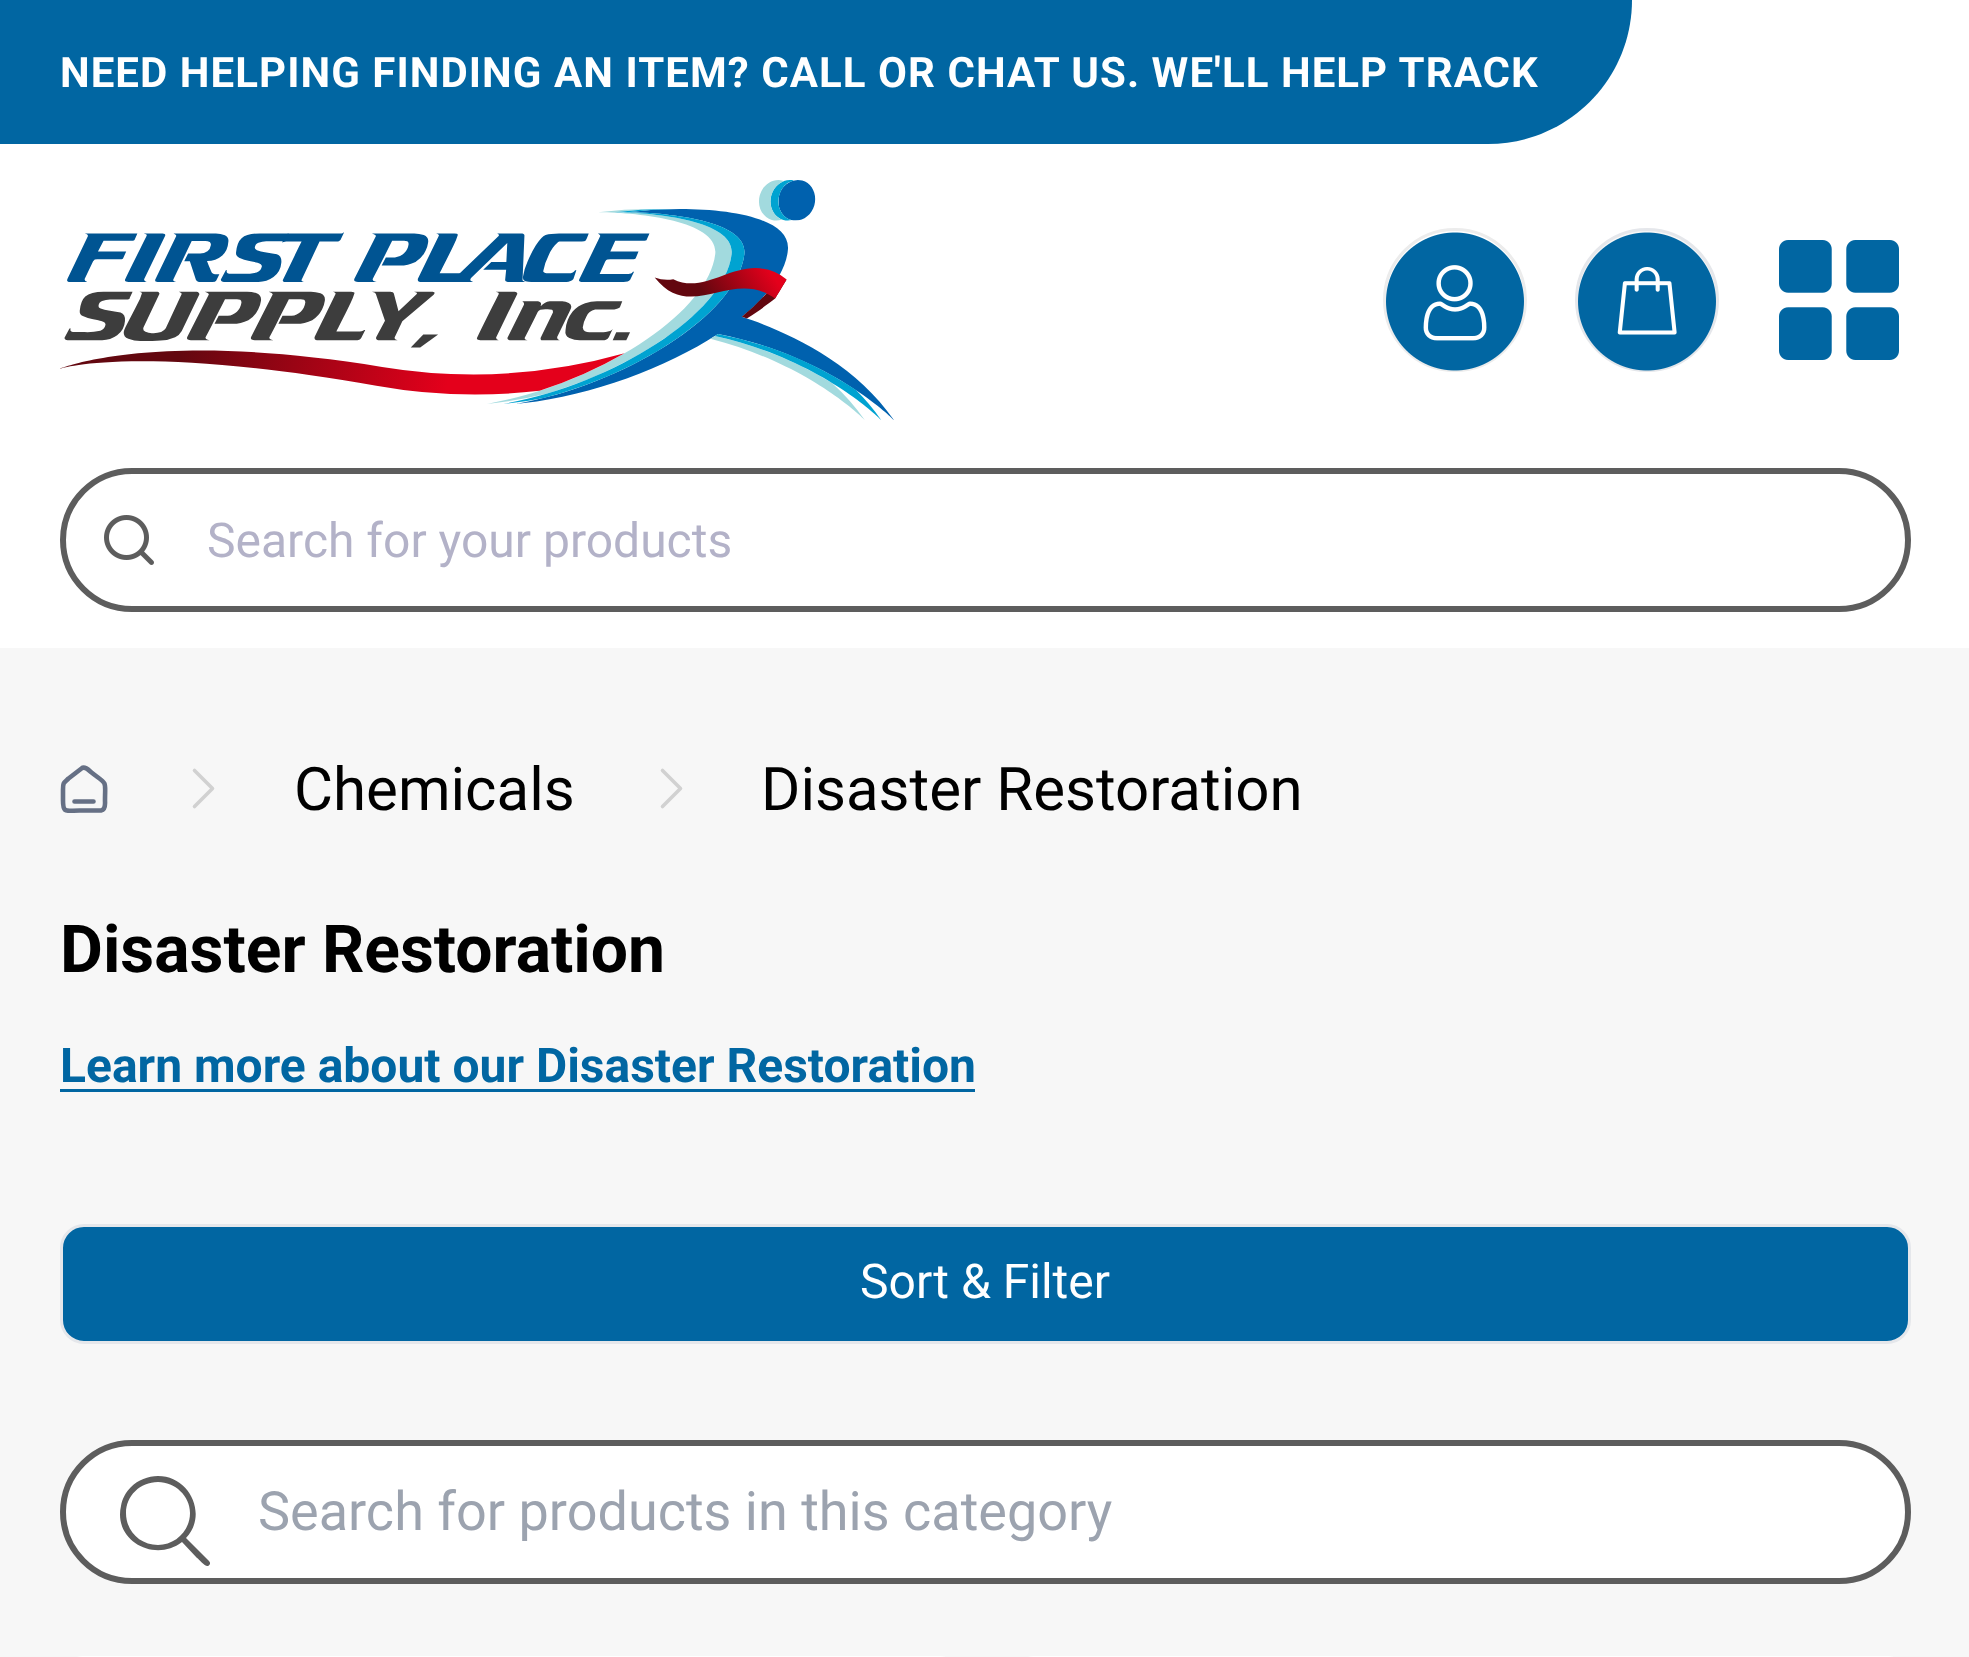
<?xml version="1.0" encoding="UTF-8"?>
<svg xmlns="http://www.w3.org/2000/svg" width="1969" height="1657">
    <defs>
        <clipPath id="clip1"><rect x="60" y="765" width="48" height="48"/></clipPath>
    </defs>
    <rect width="100%" height="100%" fill="#FFFFFF"/>
    <rect x="0" y="0" width="60" height="144" fill="#0166A2"/>
    <path d="M 60 0 H 1632 C 1632 79.5 1567.5 144 1488 144 H 60 Z" fill="#0166A2"/>
    <text x="60" y="87" font-family="Roboto" font-size="42" font-weight="700" letter-spacing="1.05" fill="#FFFFFF">NEED HELPING FINDING AN ITEM? CALL OR CHAT US. WE'LL HELP TRACK</text>
    <image x="60" y="180" width="834" height="240" href="img_01.png"/>
    <circle cx="1455" cy="300" r="70.5" fill="none" stroke="#ECECEC" stroke-width="3"/>
    <image x="1386" y="232" width="138" height="139" href="img_02.png"/>
    <circle cx="1647" cy="300" r="70.5" fill="#F7F7F7" stroke="#E5E7EB" stroke-width="3"/>
    <image x="1578" y="232" width="138" height="139" href="img_03.png"/>
    <image x="1779" y="240" width="120" height="120" href="img_04.png"/>
    <rect x="63" y="471" width="1845" height="138" rx="69" fill="none" stroke="#5D5D5D" stroke-width="6"/>
    <image x="104" y="515" width="50" height="50" href="img_05.png"/>
    <text x="207" y="557" font-family="Roboto" font-size="48" fill="#B3B2C8">Search for your products</text>
    <rect x="0" y="648" width="1969" height="1009" fill="#F7F7F7"/>
    <g clip-path="url(#clip1)">
        <path d="M 74.5 801.5 H 93.5 M 81.5 768.5 L 68.5 778.5 C 63.5 783 63 782.5 63 789.5 V 800.5 C 63 814 66.5 810.5 79.5 810.5 H 101 C 106 809.5 105 804 105 800.5 C 105 779.5 108 785.5 91.5 772.5 C 89 770.5 85 765.5 81.5 768.5 Z" fill="none" stroke="#667085" stroke-width="4.6" stroke-linecap="round" stroke-linejoin="round"/>
    </g>
    <path d="M 194.5 806.5 L 212.5 788.5 L 194.5 770.5" fill="none" stroke="#D1D1D1" stroke-width="3.6" stroke-linecap="round" stroke-linejoin="round"/>
    <text x="294" y="810" font-family="Roboto" font-size="60" fill="#000000">Chemicals</text>
    <path d="M 662.5 806.5 L 680.5 788.5 L 662.5 770.5" fill="none" stroke="#D1D1D1" stroke-width="3.6" stroke-linecap="round" stroke-linejoin="round"/>
    <text x="761" y="810" font-family="Roboto" font-size="60" fill="#000000">Disaster Restoration</text>
    <text x="60" y="972" font-family="Roboto" font-size="66" font-weight="700" fill="#000000">Disaster Restoration</text>
    <text x="60" y="1082" font-family="Roboto" font-size="48" font-weight="700" fill="#0166A2">Learn more about our Disaster Restoration</text>
    <rect x="60" y="1089" width="915" height="3" fill="#0166A2"/>
    <rect x="61.5" y="1225.5" width="1848" height="117" rx="22.5" fill="#0166A2" stroke="#E5E7EB" stroke-width="3"/>
    <text x="860" y="1298" font-family="Roboto" font-size="48" fill="#FFFFFF">Sort &amp; Filter</text>
    <rect x="63" y="1443" width="1845" height="138" rx="69" fill="#FFFFFF" stroke="#5D5D5D" stroke-width="6"/>
    <path d="M 209 1561 L 186 1538 C 208 1515 190 1476 158 1476 C 148 1476 138 1480 131 1487 C 126 1492 122 1499 121 1506 C 113 1541 155 1563 182 1542 L 197 1558 C 199 1559 205 1567 208 1566 C 210 1565 211 1563 209 1561 Z M 158 1545 C 140 1545 126 1531 126 1513 C 126 1496 140 1482 158 1482 C 175 1482 190 1496 190 1513 C 190 1531 175 1545 158 1545 Z" fill="#5D5D5D"/>
    <text x="258" y="1530" font-family="Roboto" font-size="54" fill="#9CA3AF">Search for products in this category</text>
    <path d="M 84 1656 H 939 C 952.5 1656 963 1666.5 963 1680 V 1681 H 60 V 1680 C 60 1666.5 70.5 1656 84 1656 Z" fill="#FFFFFF"/>
    <path d="M 1035 1656 H 1887 C 1900.5 1656 1911 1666.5 1911 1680 V 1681 H 1011 V 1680 C 1011 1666.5 1021.5 1656 1035 1656 Z" fill="#FFFFFF"/>
</svg>
